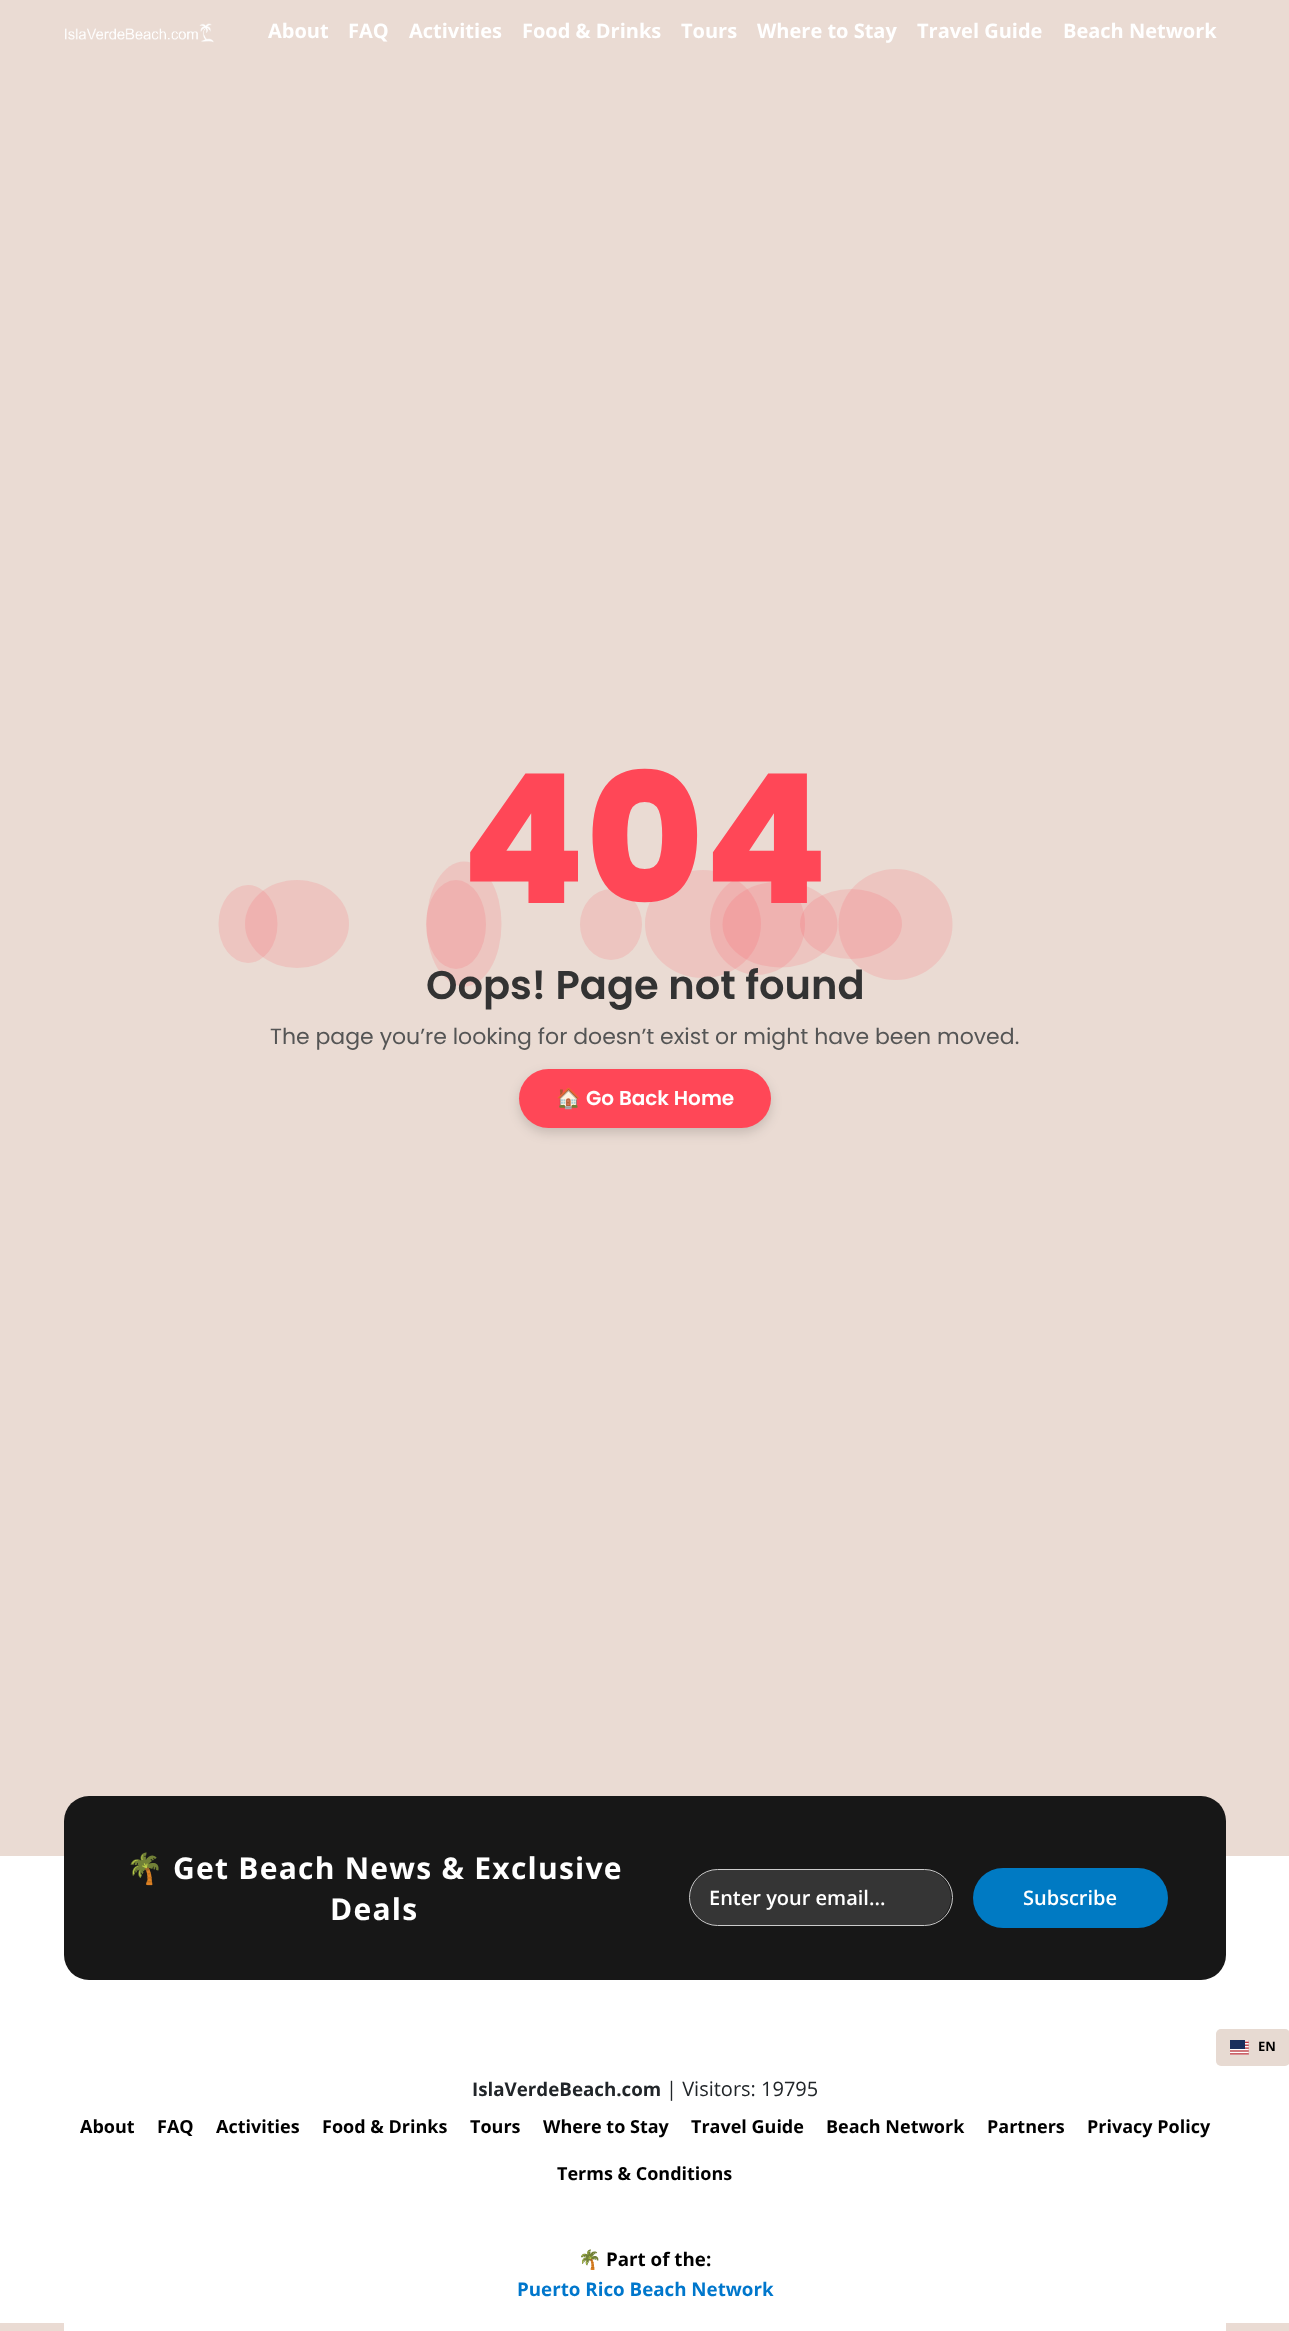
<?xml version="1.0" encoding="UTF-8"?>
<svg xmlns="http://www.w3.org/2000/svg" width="1289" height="2331">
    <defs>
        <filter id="blur1" x="-50%" y="-200%" width="200%" height="500%"><feGaussianBlur stdDeviation="6"/></filter>
    </defs>
    <rect width="100%" height="100%" fill="#EADBD3"/>
    <rect x="0" y="1856" width="1289" height="467" fill="#FFFFFF"/>
    <image x="65" y="23" width="149" height="20" href="img_01.png"/>
    <text x="268" y="38" font-family="Open Sans" font-size="20" font-weight="700" fill="#FFFFFF">About</text>
    <text x="348" y="38" font-family="Open Sans" font-size="20" font-weight="700" fill="#FFFFFF">FAQ</text>
    <text x="409" y="38" font-family="Open Sans" font-size="20" font-weight="700" fill="#FFFFFF">Activities</text>
    <text x="522" y="38" font-family="Open Sans" font-size="20" font-weight="700" fill="#FFFFFF">Food &amp; Drinks</text>
    <text x="681" y="38" font-family="Open Sans" font-size="20" font-weight="700" fill="#FFFFFF">Tours</text>
    <text x="757" y="38" font-family="Open Sans" font-size="20" font-weight="700" fill="#FFFFFF">Where to Stay</text>
    <text x="917" y="38" font-family="Open Sans" font-size="20" font-weight="700" fill="#FFFFFF">Travel Guide</text>
    <text x="1063" y="38" font-family="Open Sans" font-size="20" font-weight="700" fill="#FFFFFF">Beach Network</text>
    <ellipse cx="456" cy="924.5" rx="30" ry="44.5" fill="#EDC5C0"/>
    <ellipse cx="464" cy="924" rx="37.5" ry="62.5" fill="#FF4757" fill-opacity="0.15"/>
    <ellipse cx="851" cy="924" rx="51" ry="35" fill="#EDC5C0"/>
    <ellipse cx="780" cy="924.5" rx="57.5" ry="43" fill="#FF4757" fill-opacity="0.15"/>
    <ellipse cx="757.5" cy="924" rx="47.5" ry="51" fill="#FF4757" fill-opacity="0.15"/>
    <ellipse cx="703" cy="924" rx="58" ry="54" fill="#FF4757" fill-opacity="0.15"/>
    <ellipse cx="611" cy="924.5" rx="31" ry="35.5" fill="#EDC5C0"/>
    <text x="461" y="903" font-family="Poppins" font-size="180" font-weight="800" fill="#FF4757">404</text>
    <ellipse cx="895.5" cy="924.5" rx="57" ry="55.5" fill="#FF4757" fill-opacity="0.15"/>
    <text x="426" y="999" font-family="Poppins" font-size="40" font-weight="600" fill="#333333">Oops! Page not found</text>
    <text x="270" y="1044" font-family="Poppins" font-size="22" fill="#555555">The page you’re looking for doesn’t exist or might have been moved.</text>
    <rect x="519" y="1074" width="252" height="59" rx="29.5" fill="#000000" fill-opacity="0.15" filter="url(#blur1)"/>
    <rect x="519" y="1069" width="252" height="59" rx="29.5" fill="#FF4757"/>
    <text x="556" y="1105" font-family="Noto Color Emoji" font-size="20" font-weight="700" fill="#FFFFFF">🏠</text>
    <text x="586" y="1105" font-family="Poppins" font-size="20" font-weight="600" fill="#FFFFFF">Go Back Home</text>
    <ellipse cx="248" cy="924" rx="29.5" ry="39" fill="#EDC5C0"/>
    <ellipse cx="297" cy="924" rx="52" ry="44" fill="#FF4757" fill-opacity="0.15"/>
    <rect x="64" y="1796" width="1162" height="184" rx="25" fill="#171717"/>
    <text x="126" y="1879" font-family="Noto Color Emoji" font-size="30" font-weight="700" letter-spacing="1.25" fill="#FFFFFF">🌴</text>
    <text x="173" y="1879" font-family="Open Sans" font-size="30" font-weight="700" letter-spacing="1.25" fill="#FFFFFF">Get Beach News &amp; Exclusive</text>
    <text x="330" y="1920" font-family="Open Sans" font-size="30" font-weight="700" letter-spacing="1.25" fill="#FFFFFF">Deals</text>
    <rect x="690" y="1870" width="261" height="55" rx="27.5" fill="#353535"/>
    <rect x="689.5" y="1869.5" width="263" height="56" rx="28" fill="none" stroke="#CCCCCC"/>
    <text x="709" y="1905" font-family="Open Sans" font-size="20" font-weight="600" fill="#FFFFFF">Enter your email...</text>
    <rect x="973" y="1868" width="195" height="60" rx="30" fill="#007AC3"/>
    <text x="1023" y="1905" font-family="Open Sans" font-size="20" font-weight="600" fill="#FFFFFF">Subscribe</text>
    <text x="472" y="2096" font-family="Open Sans" font-size="18.75" font-weight="700" fill="#212529">IslaVerdeBeach.com</text>
    <text x="666" y="2096" font-family="Open Sans" font-size="20" fill="#212529">| Visitors: 19795</text>
    <text x="80" y="2133" font-family="Open Sans" font-size="18" font-weight="700" fill="#000000">About</text>
    <text x="157" y="2133" font-family="Open Sans" font-size="18" font-weight="700" fill="#000000">FAQ</text>
    <text x="216" y="2133" font-family="Open Sans" font-size="18" font-weight="700" fill="#000000">Activities</text>
    <text x="322" y="2133" font-family="Open Sans" font-size="18" font-weight="700" fill="#000000">Food &amp; Drinks</text>
    <text x="470" y="2133" font-family="Open Sans" font-size="18" font-weight="700" fill="#000000">Tours</text>
    <text x="543" y="2133" font-family="Open Sans" font-size="18" font-weight="700" fill="#000000">Where to Stay</text>
    <text x="691" y="2133" font-family="Open Sans" font-size="18" font-weight="700" fill="#000000">Travel Guide</text>
    <text x="826" y="2133" font-family="Open Sans" font-size="18" font-weight="700" fill="#000000">Beach Network</text>
    <text x="987" y="2133" font-family="Open Sans" font-size="18" font-weight="700" fill="#000000">Partners</text>
    <text x="1087" y="2133" font-family="Open Sans" font-size="18" font-weight="700" fill="#000000">Privacy Policy</text>
    <text x="557" y="2180" font-family="Open Sans" font-size="18" font-weight="700" fill="#000000">Terms &amp; Conditions</text>
    <rect x="64" y="2225" width="1162" height="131" rx="25" fill="#FFFFFF"/>
    <text x="578" y="2266" font-family="Noto Color Emoji" font-size="18.75" font-weight="700" fill="#000000">🌴</text>
    <text x="606" y="2266" font-family="Open Sans" font-size="18.75" font-weight="700" fill="#000000">Part of the:</text>
    <text x="517" y="2296" font-family="Open Sans" font-size="18.75" font-weight="700" fill="#0077CC">Puerto Rico Beach Network</text>
    <rect x="1216" y="2029" width="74" height="37" rx="5" fill="#E7DAD2"/>
    <image x="1230" y="2040" width="19" height="15" href="img_02.png"/>
    <text x="1258" y="2051" font-family="Noto Sans" font-size="13" font-weight="700" fill="#000000">EN</text>
</svg>
